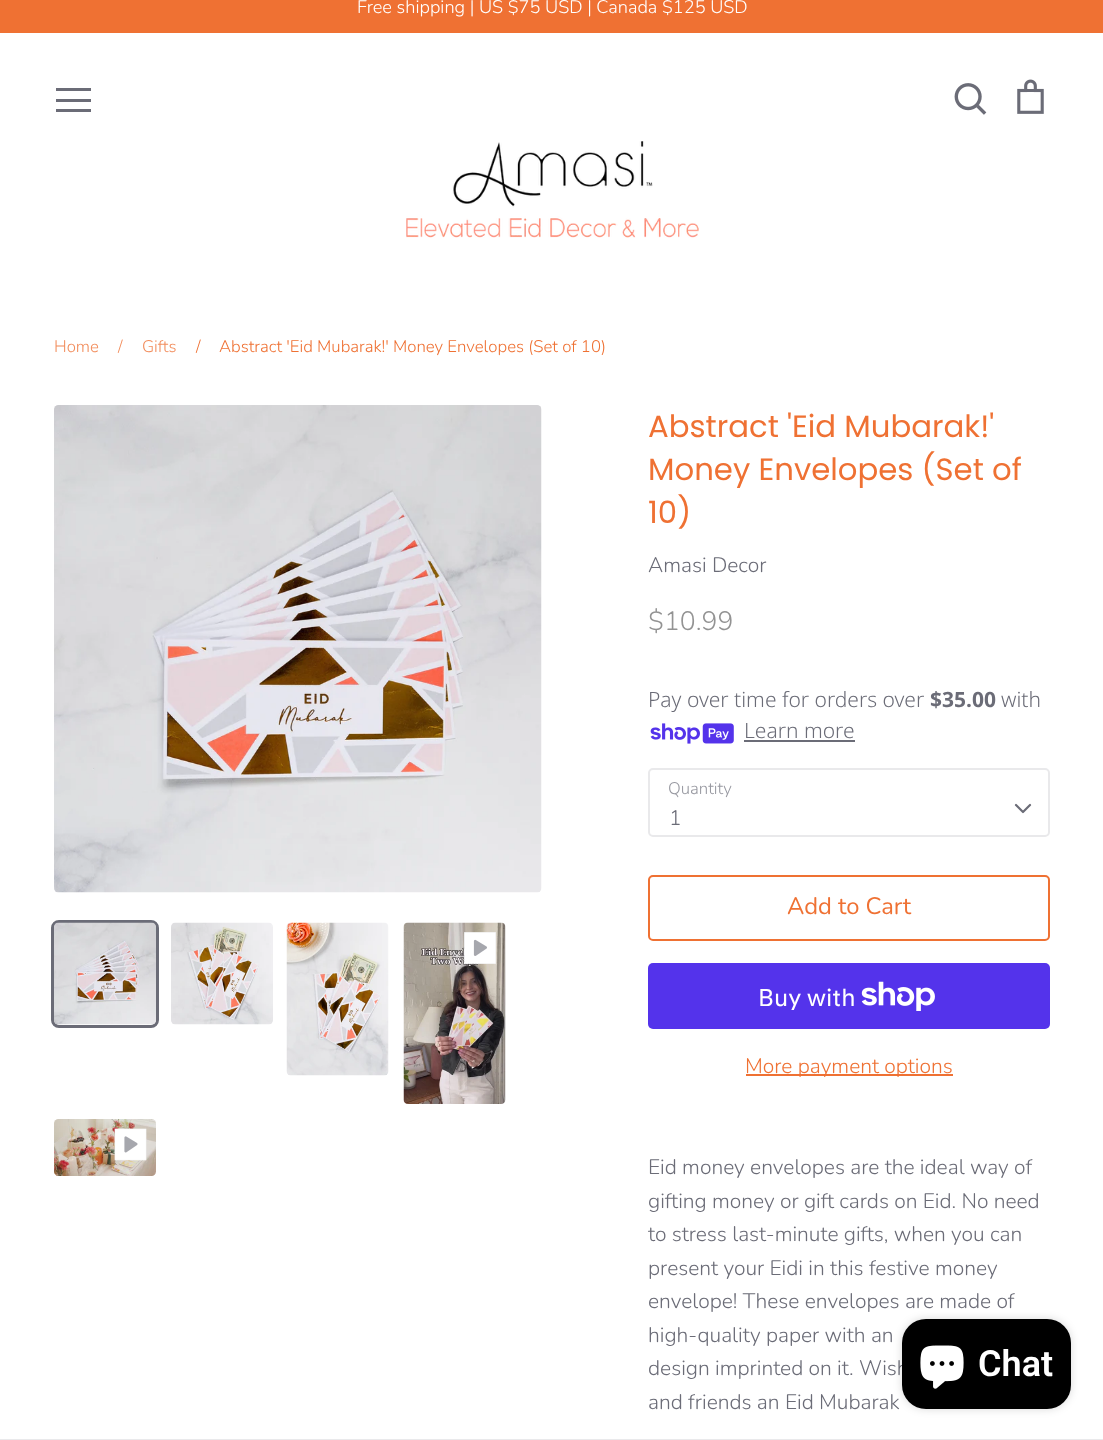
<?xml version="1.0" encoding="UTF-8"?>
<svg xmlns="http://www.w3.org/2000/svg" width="1103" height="1440">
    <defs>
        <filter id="blur1" x="-50%" y="-200%" width="200%" height="500%"><feGaussianBlur stdDeviation="4"/></filter>
    </defs>
    <rect width="100%" height="100%" fill="#FFFFFF"/>
    <rect x="0" y="0" width="1103" height="33" fill="#EF7133"/>
    <text x="357" y="13" font-family="Nunito" font-size="18.2" font-weight="300" fill="#FFFFFF">Free shipping | US $75 USD | Canada $125 USD</text>
    <rect x="56" y="88" width="35" height="3" fill="#6B6C77"/>
    <rect x="56" y="99" width="35" height="3" fill="#6B6C77"/>
    <rect x="56" y="109" width="35" height="3" fill="#6B6C77"/>
    <image x="954" y="83" width="33" height="32" href="img_01.png"/>
    <image x="1017" y="79" width="27" height="35" href="img_02.png"/>
    <image x="406" y="141" width="293" height="97" href="img_03.png"/>
    <rect x="0" y="1439" width="1103" height="1" fill="#E9E9EB"/>
    <text x="54" y="352" font-family="Nunito" font-size="16.8" font-weight="300" fill="#F28D5C">Home</text>
    <text x="118" y="352" font-family="Nunito" font-size="16.8" font-weight="300" fill="#F28D5C">/</text>
    <text x="142" y="352" font-family="Nunito" font-size="16.8" font-weight="300" fill="#F28D5C">Gifts</text>
    <text x="196" y="352" font-family="Nunito" font-size="16.8" font-weight="300" fill="#EF7133">/</text>
    <text x="219" y="352" font-family="Nunito" font-size="16.8" font-weight="300" fill="#EF7133">Abstract 'Eid Mubarak!' Money Envelopes (Set of 10)</text>
    <image x="54" y="405" width="488" height="488" href="img_04.png"/>
    <rect x="52.5" y="921.5" width="105" height="105" rx="6.5" fill="none" stroke="#6B6C77" stroke-width="3"/>
    <image x="54" y="922" width="102" height="103" href="img_05.png"/>
    <image x="171" y="922" width="102" height="103" href="img_06.png"/>
    <image x="286" y="922" width="103" height="154" href="img_07.png"/>
    <image x="403" y="922" width="103" height="182" href="img_08.png"/>
    <image x="464" y="932" width="32" height="32" href="img_09.png"/>
    <image x="54" y="1119" width="102" height="57" href="img_10.png"/>
    <image x="114" y="1128" width="33" height="33" href="img_11.png"/>
    <text font-family="Poppins" font-size="30.75" fill="#EF7133">
        <tspan x="648" y="437">Abstract 'Eid Mubarak!'</tspan>
        <tspan x="648" y="480">Money Envelopes (Set of</tspan>
        <tspan x="648" y="523">10)</tspan>
    </text>
    <text x="648" y="572" font-family="Nunito" font-size="21" font-weight="300" fill="#6B6C77">Amasi Decor</text>
    <text x="648" y="630" font-family="Nunito" font-size="26.5" font-weight="300" fill="#939393">$10.99</text>
    <text x="648" y="707" font-family="Noto Sans" font-size="21" font-weight="300" fill="#6B6C77">Pay over time for orders over</text>
    <text x="930" y="707" font-family="Noto Sans" font-size="21" font-weight="700" fill="#6B6C77">$35.00</text>
    <text x="1001" y="707" font-family="Noto Sans" font-size="21" font-weight="300" fill="#6B6C77">with</text>
    <image x="650" y="723" width="84" height="21" href="img_12.png"/>
    <text x="744" y="738" font-family="Noto Sans" font-size="21" font-weight="300" fill="#6B6C77">Learn more</text>
    <rect x="744" y="740" width="111" height="2" fill="#6B6C77"/>
    <text x="668" y="794" font-family="Nunito" font-size="16.8" font-weight="300" fill="#9798A0">Quantity</text>
    <rect x="649" y="769" width="400" height="67" rx="4" fill="none" stroke="#E9E9EB" stroke-width="2"/>
    <path d="M 1016 805 L 1023 812 L 1030 805" fill="none" stroke="#6B6C77" stroke-width="2.2" stroke-linecap="round" stroke-linejoin="round"/>
    <text x="669" y="825" font-family="Nunito" font-size="21" font-weight="300" fill="#6B6C77">1</text>
    <rect x="649" y="876" width="400" height="64" rx="4" fill="none" stroke="#EF7133" stroke-width="2"/>
    <text x="787" y="914" font-family="Nunito" font-size="23.75" fill="#EF7133">Add to Cart</text>
    <rect x="648" y="963" width="402" height="66" rx="5" fill="#5433EB"/>
    <text x="758" y="1006" font-family="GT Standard" font-size="24" fill="#FFFFFF">Buy with</text>
    <image x="861" y="981" width="74" height="30" href="img_13.png"/>
    <rect x="746" y="1074" width="207" height="2" fill="#EF7133"/>
    <text x="745" y="1073" font-family="Nunito" font-size="21" font-weight="300" fill="#EF7133">More payment options</text>
    <text font-family="Nunito" font-size="21" font-weight="300" fill="#6B6C77">
        <tspan x="648" y="1174">Eid money envelopes are the ideal way of</tspan>
        <tspan x="648" y="1208">gifting money or gift cards on Eid. No need</tspan>
        <tspan x="648" y="1241">to stress last-minute gifts, when you can</tspan>
        <tspan x="648" y="1275">present your Eidi in this festive money</tspan>
        <tspan x="648" y="1308">envelope! These envelopes are made of</tspan>
        <tspan x="648" y="1342">high-quality paper with an</tspan>
        <tspan x="648" y="1375">design imprinted on it. Wish</tspan>
        <tspan x="648" y="1409">and friends an Eid Mubarak</tspan>
    </text>
    <rect x="902" y="1319" width="169" height="90" rx="24" fill="#000000" fill-opacity="0.15" filter="url(#blur1)"/>
    <rect x="902" y="1319" width="169" height="90" rx="24" fill="#000000"/>
    <image x="920" y="1345" width="44" height="44" href="img_14.png"/>
    <text x="978" y="1376" font-family="Roboto" font-size="36" font-weight="600" fill="#FFFFFF">Chat</text>
</svg>
